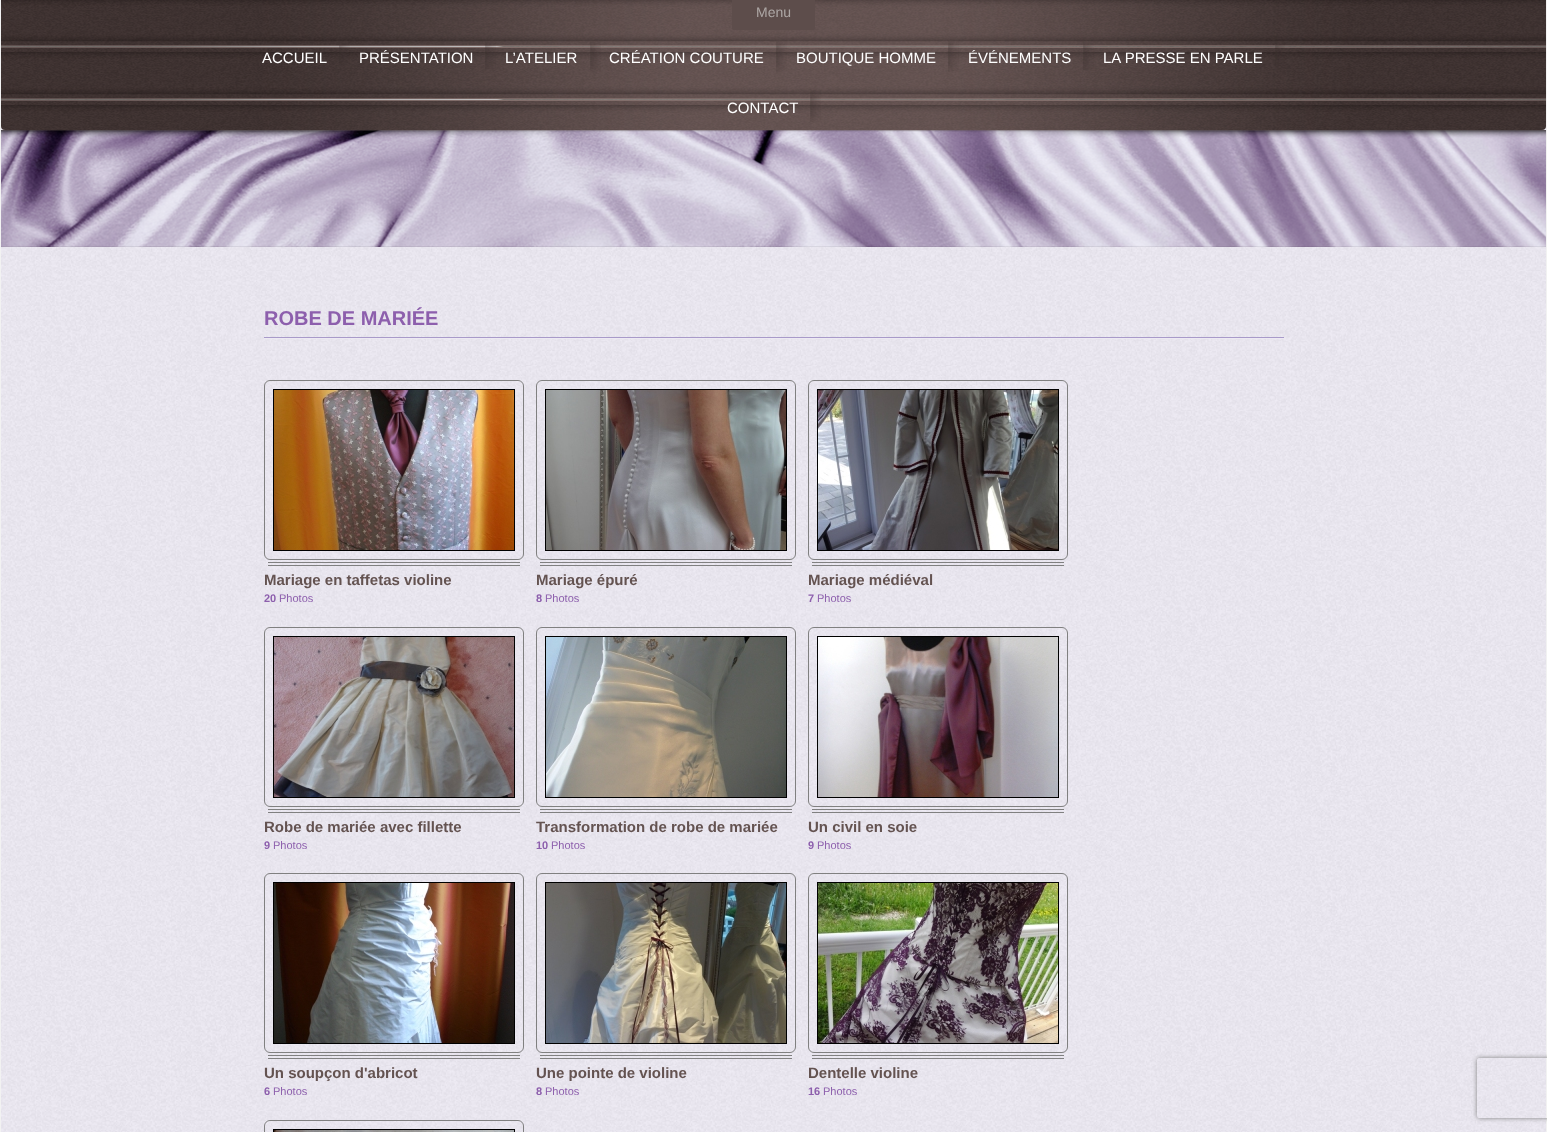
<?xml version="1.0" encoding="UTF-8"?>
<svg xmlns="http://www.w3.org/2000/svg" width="1547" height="1132">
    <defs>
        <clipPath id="clip1"><rect x="536" y="817" width="260" height="20"/></clipPath>
        <clipPath id="clip2"><path d="M 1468 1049 H 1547 V 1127 H 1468 Z M 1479 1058 H 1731 C 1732 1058 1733 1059 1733 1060 V 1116 C 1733 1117 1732 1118 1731 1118 H 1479 C 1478 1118 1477 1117 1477 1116 V 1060 C 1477 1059 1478 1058 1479 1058 Z" clip-rule="evenodd"/></clipPath>
        <filter id="blur1" x="-50%" y="-200%" width="200%" height="500%"><feGaussianBlur stdDeviation="2.5"/></filter>
    </defs>
    <rect width="100%" height="100%" fill="#FFFFFF"/>
    <image x="1" y="126" width="1545" height="1006" href="img_01.png"/>
    <rect x="1546" y="0" width="1" height="1132" fill="#F2F2F2"/>
    <rect x="0" y="0" width="1" height="1132" fill="#F2F2F2"/>
    <image x="1" y="0" width="1545" height="130" href="img_02.png"/>
    <rect x="732" y="-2" width="83" height="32" rx="2" fill="#5D4D4B"/>
    <text x="756" y="17" font-family="Liberation Sans" font-size="14" fill="#ADA7A5">Menu</text>
    <image x="339" y="45" width="11" height="20" href="img_03.png"/>
    <text x="262" y="63" font-family="Liberation Sans" font-size="15" fill="#FFFFFF">ACCUEIL</text>
    <image x="485" y="42" width="11" height="27" href="img_04.png"/>
    <text x="359" y="63" font-family="Liberation Sans" font-size="15" fill="#FFFFFF">PRÉSENTATION</text>
    <image x="590" y="41" width="11" height="31" href="img_05.png"/>
    <text x="505" y="63" font-family="Liberation Sans" font-size="15" fill="#FFFFFF">L’ATELIER</text>
    <image x="776" y="41" width="11" height="31" href="img_06.png"/>
    <text x="609" y="63" font-family="Liberation Sans" font-size="15" fill="#FFFFFF">CRÉATION COUTURE</text>
    <image x="948" y="41" width="11" height="31" href="img_07.png"/>
    <text x="796" y="63" font-family="Liberation Sans" font-size="15" fill="#FFFFFF">BOUTIQUE HOMME</text>
    <image x="1083" y="42" width="11" height="28" href="img_08.png"/>
    <text x="968" y="63" font-family="Liberation Sans" font-size="15" fill="#FFFFFF">ÉVÉNEMENTS</text>
    <image x="1275" y="45" width="10" height="21" href="img_09.png"/>
    <text x="1103" y="63" font-family="Liberation Sans" font-size="15" fill="#FFFFFF">LA PRESSE EN PARLE</text>
    <image x="810" y="90" width="11" height="32" href="img_10.png"/>
    <text x="727" y="113" font-family="Liberation Sans" font-size="15" fill="#FFFFFF">CONTACT</text>
    <image x="1" y="130" width="1545" height="117" href="img_11.png"/>
    <image x="264" y="337" width="1020" height="2" href="img_12.png"/>
    <text x="264" y="325" font-family="Liberation Sans" font-size="20" font-weight="700" fill="#8D5FAD">ROBE DE MARIÉE</text>
    <rect x="264.5" y="380.5" width="259" height="179" rx="5.5" fill="none" stroke="#808080"/>
    <rect x="273.5" y="389.5" width="241" height="161" fill="none" stroke="#000000"/>
    <image x="274" y="390" width="240" height="160" href="img_13.png"/>
    <rect x="268" y="562" width="252" height="1" fill="#808080"/>
    <rect x="268" y="565" width="252" height="1" fill="#808080"/>
    <text x="264" y="585" font-family="Liberation Sans" font-size="15" font-weight="700" fill="#645351">Mariage en taffetas violine</text>
    <text x="264" y="602" font-family="Liberation Sans" font-size="11" font-weight="700" fill="#8D5FAD">20</text>
    <text x="279" y="602" font-family="Liberation Sans" font-size="11" fill="#8D5FAD">Photos</text>
    <rect x="536.5" y="380.5" width="259" height="179" rx="5.5" fill="none" stroke="#808080"/>
    <rect x="545.5" y="389.5" width="241" height="161" fill="none" stroke="#000000"/>
    <image x="546" y="390" width="240" height="160" href="img_14.png"/>
    <rect x="540" y="562" width="252" height="1" fill="#808080"/>
    <rect x="540" y="565" width="252" height="1" fill="#808080"/>
    <text x="536" y="585" font-family="Liberation Sans" font-size="15" font-weight="700" fill="#645351">Mariage épuré</text>
    <text x="536" y="602" font-family="Liberation Sans" font-size="11" font-weight="700" fill="#8D5FAD">8</text>
    <text x="545" y="602" font-family="Liberation Sans" font-size="11" fill="#8D5FAD">Photos</text>
    <rect x="808.5" y="380.5" width="259" height="179" rx="5.5" fill="none" stroke="#808080"/>
    <rect x="817.5" y="389.5" width="241" height="161" fill="none" stroke="#000000"/>
    <image x="818" y="390" width="240" height="160" href="img_15.png"/>
    <rect x="812" y="562" width="252" height="1" fill="#808080"/>
    <rect x="812" y="565" width="252" height="1" fill="#808080"/>
    <text x="808" y="585" font-family="Liberation Sans" font-size="15" font-weight="700" fill="#645351">Mariage médiéval</text>
    <text x="808" y="602" font-family="Liberation Sans" font-size="11" font-weight="700" fill="#8D5FAD">7</text>
    <text x="817" y="602" font-family="Liberation Sans" font-size="11" fill="#8D5FAD">Photos</text>
    <rect x="264.5" y="627.5" width="259" height="179" rx="5.5" fill="none" stroke="#808080"/>
    <rect x="273.5" y="636.5" width="241" height="161" fill="none" stroke="#000000"/>
    <image x="274" y="637" width="240" height="160" href="img_16.png"/>
    <rect x="268" y="809" width="252" height="1" fill="#808080"/>
    <rect x="268" y="812" width="252" height="1" fill="#808080"/>
    <text x="264" y="832" font-family="Liberation Sans" font-size="15" font-weight="700" fill="#645351">Robe de mariée avec fillette</text>
    <text x="264" y="849" font-family="Liberation Sans" font-size="11" font-weight="700" fill="#8D5FAD">9</text>
    <text x="273" y="849" font-family="Liberation Sans" font-size="11" fill="#8D5FAD">Photos</text>
    <rect x="536.5" y="627.5" width="259" height="179" rx="5.5" fill="none" stroke="#808080"/>
    <rect x="545.5" y="636.5" width="241" height="161" fill="none" stroke="#000000"/>
    <image x="546" y="637" width="240" height="160" href="img_17.png"/>
    <rect x="540" y="809" width="252" height="1" fill="#808080"/>
    <rect x="540" y="812" width="252" height="1" fill="#808080"/>
    <g clip-path="url(#clip1)">
        <text x="536" y="832" font-family="Liberation Sans" font-size="15" font-weight="700" fill="#645351">Transformation de robe de mariée</text>
    </g>
    <text x="536" y="849" font-family="Liberation Sans" font-size="11" font-weight="700" fill="#8D5FAD">10</text>
    <text x="551" y="849" font-family="Liberation Sans" font-size="11" fill="#8D5FAD">Photos</text>
    <rect x="808.5" y="627.5" width="259" height="179" rx="5.5" fill="none" stroke="#808080"/>
    <rect x="817.5" y="636.5" width="241" height="161" fill="none" stroke="#000000"/>
    <image x="818" y="637" width="240" height="160" href="img_18.png"/>
    <rect x="812" y="809" width="252" height="1" fill="#808080"/>
    <rect x="812" y="812" width="252" height="1" fill="#808080"/>
    <text x="808" y="832" font-family="Liberation Sans" font-size="15" font-weight="700" fill="#645351">Un civil en soie</text>
    <text x="808" y="849" font-family="Liberation Sans" font-size="11" font-weight="700" fill="#8D5FAD">9</text>
    <text x="817" y="849" font-family="Liberation Sans" font-size="11" fill="#8D5FAD">Photos</text>
    <rect x="264.5" y="873.5" width="259" height="179" rx="5.5" fill="none" stroke="#808080"/>
    <rect x="273.5" y="882.5" width="241" height="161" fill="none" stroke="#000000"/>
    <image x="274" y="883" width="240" height="160" href="img_19.png"/>
    <rect x="268" y="1055" width="252" height="1" fill="#808080"/>
    <rect x="268" y="1058" width="252" height="1" fill="#808080"/>
    <text x="264" y="1078" font-family="Liberation Sans" font-size="15" font-weight="700" fill="#645351">Un soupçon d'abricot</text>
    <text x="264" y="1095" font-family="Liberation Sans" font-size="11" font-weight="700" fill="#8D5FAD">6</text>
    <text x="273" y="1095" font-family="Liberation Sans" font-size="11" fill="#8D5FAD">Photos</text>
    <rect x="536.5" y="873.5" width="259" height="179" rx="5.5" fill="none" stroke="#808080"/>
    <rect x="545.5" y="882.5" width="241" height="161" fill="none" stroke="#000000"/>
    <image x="546" y="883" width="240" height="160" href="img_20.png"/>
    <rect x="540" y="1055" width="252" height="1" fill="#808080"/>
    <rect x="540" y="1058" width="252" height="1" fill="#808080"/>
    <text x="536" y="1078" font-family="Liberation Sans" font-size="15" font-weight="700" fill="#645351">Une pointe de violine</text>
    <text x="536" y="1095" font-family="Liberation Sans" font-size="11" font-weight="700" fill="#8D5FAD">8</text>
    <text x="545" y="1095" font-family="Liberation Sans" font-size="11" fill="#8D5FAD">Photos</text>
    <rect x="808.5" y="873.5" width="259" height="179" rx="5.5" fill="none" stroke="#808080"/>
    <rect x="817.5" y="882.5" width="241" height="161" fill="none" stroke="#000000"/>
    <image x="818" y="883" width="240" height="160" href="img_21.png"/>
    <rect x="812" y="1055" width="252" height="1" fill="#808080"/>
    <rect x="812" y="1058" width="252" height="1" fill="#808080"/>
    <text x="808" y="1078" font-family="Liberation Sans" font-size="15" font-weight="700" fill="#645351">Dentelle violine</text>
    <text x="808" y="1095" font-family="Liberation Sans" font-size="11" font-weight="700" fill="#8D5FAD">16</text>
    <text x="823" y="1095" font-family="Liberation Sans" font-size="11" fill="#8D5FAD">Photos</text>
    <rect x="264.5" y="1120.5" width="259" height="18" rx="5.5" fill="none" stroke="#808080"/>
    <rect x="273.5" y="1129.5" width="241" height="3" fill="none" stroke="#000000"/>
    <image x="274" y="1130" width="240" height="2" href="img_22.png"/>
    <g clip-path="url(#clip2)">
        <rect x="1477" y="1058" width="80" height="60" rx="2" fill="#808080" filter="url(#blur1)"/>
    </g>
</svg>
